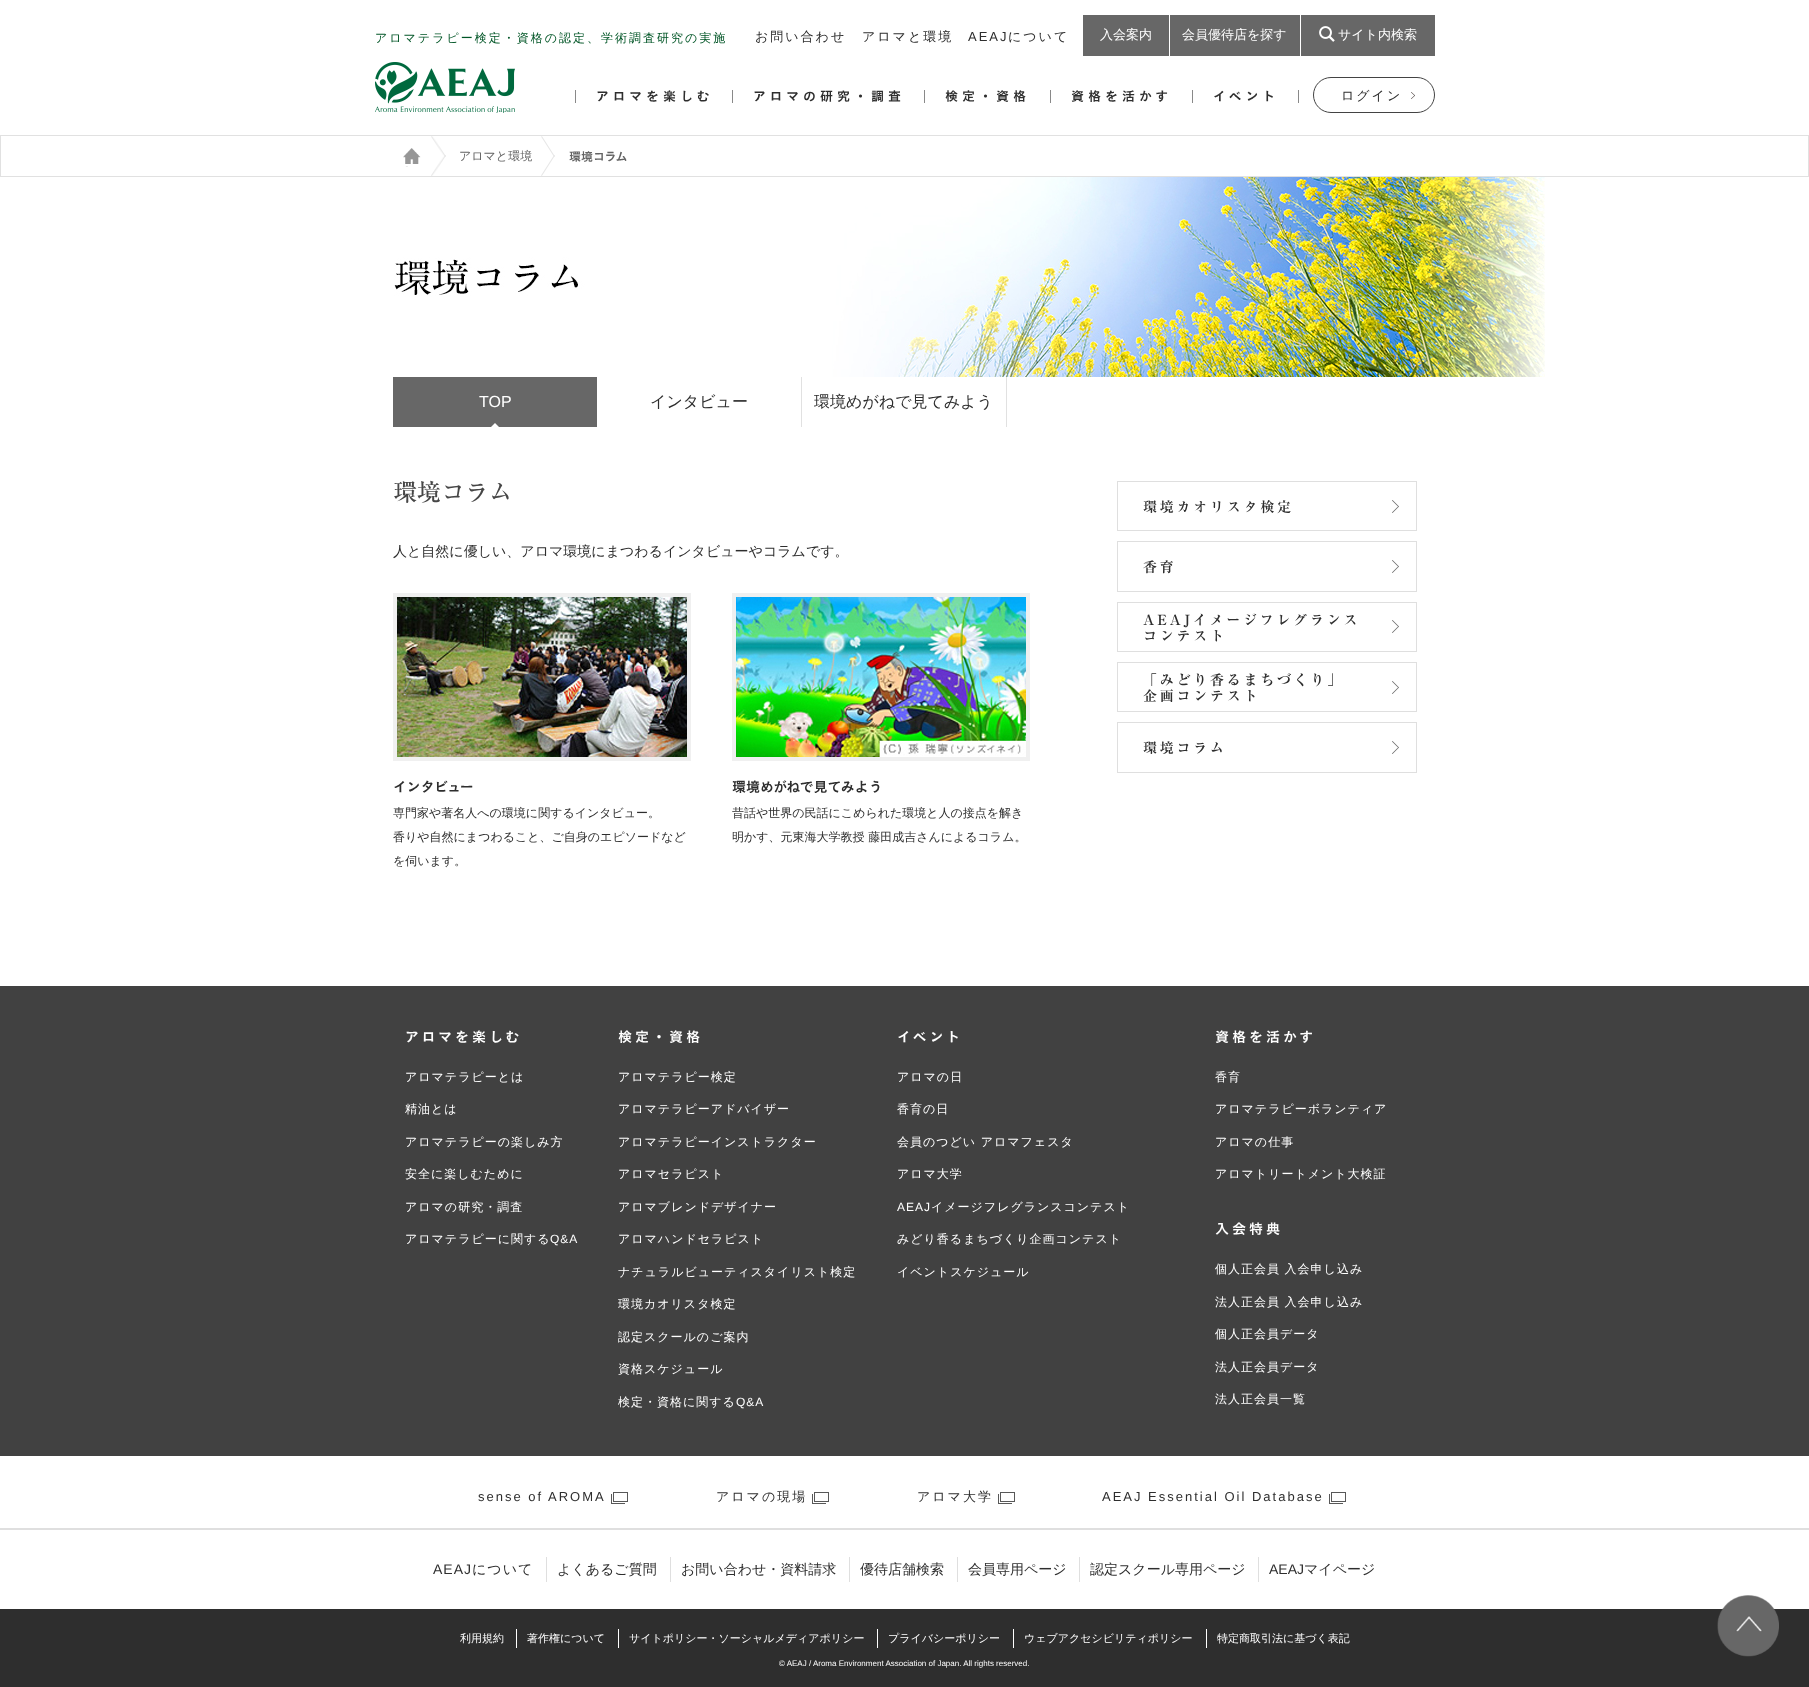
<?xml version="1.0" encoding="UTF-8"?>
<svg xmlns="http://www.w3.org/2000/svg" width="1809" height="1687">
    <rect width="100%" height="100%" fill="#FFFFFF"/>
    <text x="375" y="42" font-family="WenQuanYi Zen Hei" font-size="12" font-weight="500" letter-spacing="2" fill="#005526">アロマテラピー検定・資格の認定、学術調査研究の実施</text>
    <text x="755" y="41" font-family="WenQuanYi Zen Hei" font-size="13" font-weight="500" letter-spacing="2" fill="#2E2E2E">お問い合わせ</text>
    <text x="862" y="41" font-family="WenQuanYi Zen Hei" font-size="13" font-weight="500" letter-spacing="2" fill="#2E2E2E">アロマと環境</text>
    <text x="968" y="41" font-family="Liberation Sans" font-size="13" letter-spacing="2" fill="#2E2E2E">AEAJ</text>
    <text x="1008" y="41" font-family="WenQuanYi Zen Hei" font-size="13" font-weight="500" letter-spacing="2" fill="#2E2E2E">について</text>
    <rect x="1083" y="15" width="86" height="41" fill="#676767"/>
    <text x="1100" y="39" font-family="WenQuanYi Zen Hei" font-size="13" font-weight="500" fill="#FFFFFF">入会案内</text>
    <rect x="1170" y="15" width="130" height="41" fill="#676767"/>
    <text x="1182" y="39" font-family="WenQuanYi Zen Hei" font-size="13" font-weight="500" fill="#FFFFFF">会員優待店を探す</text>
    <rect x="1301" y="15" width="134" height="41" fill="#676767"/>
    <image x="1319" y="26" width="16" height="16" href="img_01.png"/>
    <text x="1338" y="39" font-family="WenQuanYi Zen Hei" font-size="13" font-weight="500" fill="#FFFFFF">サイト内検索</text>
    <image x="375" y="62" width="140" height="51" href="img_02.png"/>
    <rect x="575" y="90" width="1" height="13" fill="#898989"/>
    <text x="596" y="101" font-family="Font" font-size="13" font-weight="600" letter-spacing="4" fill="#2E2E2E">アロマを楽しむ</text>
    <rect x="732" y="90" width="1" height="13" fill="#898989"/>
    <text x="753" y="101" font-family="Font" font-size="13" font-weight="600" letter-spacing="4" fill="#2E2E2E">アロマの研究・調査</text>
    <rect x="924" y="90" width="1" height="13" fill="#898989"/>
    <text x="945" y="101" font-family="Font" font-size="13" font-weight="600" letter-spacing="4" fill="#2E2E2E">検定・資格</text>
    <rect x="1050" y="90" width="1" height="13" fill="#898989"/>
    <text x="1071" y="101" font-family="Font" font-size="13" font-weight="600" letter-spacing="4" fill="#2E2E2E">資格を活かす</text>
    <rect x="1298" y="90" width="1" height="13" fill="#898989"/>
    <rect x="1192" y="90" width="1" height="13" fill="#898989"/>
    <text x="1213" y="101" font-family="Font" font-size="13" font-weight="600" letter-spacing="4" fill="#2E2E2E">イベント</text>
    <rect x="1313.5" y="77.5" width="121" height="35" rx="17.5" fill="none" stroke="#434343"/>
    <text x="1341" y="100" font-family="WenQuanYi Zen Hei" font-size="13" font-weight="500" letter-spacing="2" fill="#2E2E2E">ログイン</text>
    <image x="1411" y="92" width="4" height="7" href="img_03.png"/>
    <rect x="0.5" y="135.5" width="1808" height="41" fill="none" stroke="#E1E1E1"/>
    <image x="393" y="166" width="15" height="1" href="img_04.png"/>
    <image x="403" y="148" width="18" height="16" href="img_05.png"/>
    <image x="431" y="136" width="15" height="40" href="img_06.png"/>
    <text x="459" y="160" font-family="WenQuanYi Zen Hei" font-size="12" font-weight="500" fill="#646464">アロマと環境</text>
    <image x="541" y="136" width="14" height="40" href="img_07.png"/>
    <text x="569" y="161" font-family="Font" font-size="12" font-weight="600" fill="#646464">環境コラム</text>
    <image x="394" y="177" width="1151" height="200" href="img_08.png"/>
    <rect x="393" y="377" width="204" height="50" fill="#676767"/>
    <image x="491" y="423" width="8" height="4" href="img_09.png"/>
    <text x="479" y="407" font-family="Liberation Sans" font-size="16" fill="#FFFFFF">TOP</text>
    <rect x="801" y="377" width="1" height="50" fill="#E1E1E1"/>
    <text x="650" y="407" font-family="WenQuanYi Zen Hei" font-size="16" font-weight="500" fill="#2E2E2E">インタビュー</text>
    <rect x="1006" y="377" width="1" height="50" fill="#E1E1E1"/>
    <text x="814" y="407" font-family="WenQuanYi Zen Hei" font-size="16" font-weight="500" fill="#2E2E2E">環境めがねで見てみよう</text>
    <text x="393" y="501" font-family="Font" font-size="24" fill="#464646">環境コラム</text>
    <text x="393" y="556" font-family="WenQuanYi Zen Hei" font-size="14" font-weight="500" fill="#2E2E2E">人と自然に優しい、アロマ環境にまつわるインタビューやコラムです。</text>
    <rect x="395" y="595" width="294" height="164" fill="none" stroke="#F0F0F0" stroke-width="4"/>
    <image x="397" y="597" width="290" height="160" href="img_10.png"/>
    <text x="393" y="792" font-family="Font" font-size="14" font-weight="600" fill="#2E2E2E">インタビュー</text>
    <text x="393" y="817" font-family="WenQuanYi Zen Hei" font-size="12" font-weight="500" fill="#2E2E2E">専門家や著名人への環境に関するインタビュー。</text>
    <text x="393" y="841" font-family="WenQuanYi Zen Hei" font-size="12" font-weight="500" fill="#2E2E2E">香りや自然にまつわること、ご自身のエピソードなど</text>
    <text x="393" y="865" font-family="WenQuanYi Zen Hei" font-size="12" font-weight="500" fill="#2E2E2E">を伺います。</text>
    <rect x="734" y="595" width="294" height="164" fill="none" stroke="#F0F0F0" stroke-width="4"/>
    <image x="736" y="597" width="290" height="160" href="img_11.png"/>
    <text x="732" y="792" font-family="Font" font-size="14" font-weight="600" fill="#2E2E2E">環境めがねで見てみよう</text>
    <text x="732" y="817" font-family="WenQuanYi Zen Hei" font-size="12" font-weight="500" fill="#2E2E2E">昔話や世界の民話にこめられた環境と人の接点を解き</text>
    <text x="732" y="841" font-family="WenQuanYi Zen Hei" font-size="12" font-weight="500" fill="#2E2E2E">明かす、元東海大学教授 藤田成吉さんによるコラム。</text>
    <image x="1392" y="500" width="7" height="13" href="img_12.png"/>
    <rect x="1117.5" y="481.5" width="299" height="49" fill="none" stroke="#DFDFDF"/>
    <text x="1143" y="512" font-family="Font" font-size="14" font-weight="500" letter-spacing="2.75" fill="#2E2E2E">環境カオリスタ検定</text>
    <image x="1392" y="560" width="7" height="13" href="img_12.png"/>
    <rect x="1117.5" y="541.5" width="299" height="50" fill="none" stroke="#DFDFDF"/>
    <text x="1143" y="572" font-family="Font" font-size="14" font-weight="500" letter-spacing="2.75" fill="#2E2E2E">香育</text>
    <image x="1392" y="620" width="7" height="13" href="img_12.png"/>
    <rect x="1117.5" y="602.5" width="299" height="49" fill="none" stroke="#DFDFDF"/>
    <text font-family="Font" font-size="14" font-weight="500" letter-spacing="2.75" fill="#2E2E2E">
        <tspan x="1143" y="625">AEAJイメージフレグランス</tspan>
        <tspan x="1143" y="641">コンテスト</tspan>
    </text>
    <image x="1392" y="681" width="7" height="13" href="img_12.png"/>
    <rect x="1117.5" y="662.5" width="299" height="49" fill="none" stroke="#DFDFDF"/>
    <text font-family="Font" font-size="14" font-weight="500" letter-spacing="2.75" fill="#2E2E2E">
        <tspan x="1143" y="685">「みどり香るまちづくり」</tspan>
        <tspan x="1143" y="701">企画コンテスト</tspan>
    </text>
    <image x="1392" y="741" width="7" height="13" href="img_12.png"/>
    <rect x="1117.5" y="722.5" width="299" height="50" fill="none" stroke="#DFDFDF"/>
    <text x="1143" y="753" font-family="Font" font-size="14" font-weight="500" letter-spacing="2.75" fill="#2E2E2E">環境コラム</text>
    <rect x="0" y="1609" width="1809" height="78" fill="#2E2E2E"/>
    <rect x="0" y="986" width="1809" height="470" fill="#414141"/>
    <text x="405" y="1042" font-family="Font" font-size="14" font-weight="600" letter-spacing="3" fill="#FFFFFF">アロマを楽しむ</text>
    <text x="405" y="1081" font-family="WenQuanYi Zen Hei" font-size="12" font-weight="500" letter-spacing="1" fill="#FFFFFF">アロマテラピーとは</text>
    <text x="405" y="1113" font-family="WenQuanYi Zen Hei" font-size="12" font-weight="500" letter-spacing="1" fill="#FFFFFF">精油とは</text>
    <text x="405" y="1146" font-family="WenQuanYi Zen Hei" font-size="12" font-weight="500" letter-spacing="1" fill="#FFFFFF">アロマテラピーの楽しみ方</text>
    <text x="405" y="1178" font-family="WenQuanYi Zen Hei" font-size="12" font-weight="500" letter-spacing="1" fill="#FFFFFF">安全に楽しむために</text>
    <text x="405" y="1211" font-family="WenQuanYi Zen Hei" font-size="12" font-weight="500" letter-spacing="1" fill="#FFFFFF">アロマの研究・調査</text>
    <text x="405" y="1243" font-family="WenQuanYi Zen Hei" font-size="12" font-weight="500" letter-spacing="1" fill="#FFFFFF">アロマテラピーに関する</text>
    <text x="550" y="1243" font-family="Liberation Sans" font-size="12" letter-spacing="1" fill="#FFFFFF">Q&amp;A</text>
    <text x="618" y="1042" font-family="Font" font-size="14" font-weight="600" letter-spacing="3" fill="#FFFFFF">検定・資格</text>
    <text x="618" y="1081" font-family="WenQuanYi Zen Hei" font-size="12" font-weight="500" letter-spacing="1" fill="#FFFFFF">アロマテラピー検定</text>
    <text x="618" y="1113" font-family="WenQuanYi Zen Hei" font-size="12" font-weight="500" letter-spacing="1" fill="#FFFFFF">アロマテラピーアドバイザー</text>
    <text x="618" y="1146" font-family="WenQuanYi Zen Hei" font-size="12" font-weight="500" letter-spacing="1" fill="#FFFFFF">アロマテラピーインストラクター</text>
    <text x="618" y="1178" font-family="WenQuanYi Zen Hei" font-size="12" font-weight="500" letter-spacing="1" fill="#FFFFFF">アロマセラピスト</text>
    <text x="618" y="1211" font-family="WenQuanYi Zen Hei" font-size="12" font-weight="500" letter-spacing="1" fill="#FFFFFF">アロマブレンドデザイナー</text>
    <text x="618" y="1243" font-family="WenQuanYi Zen Hei" font-size="12" font-weight="500" letter-spacing="1" fill="#FFFFFF">アロマハンドセラピスト</text>
    <text x="618" y="1276" font-family="WenQuanYi Zen Hei" font-size="12" font-weight="500" letter-spacing="1" fill="#FFFFFF">ナチュラルビューティスタイリスト検定</text>
    <text x="618" y="1308" font-family="WenQuanYi Zen Hei" font-size="12" font-weight="500" letter-spacing="1" fill="#FFFFFF">環境カオリスタ検定</text>
    <text x="618" y="1341" font-family="WenQuanYi Zen Hei" font-size="12" font-weight="500" letter-spacing="1" fill="#FFFFFF">認定スクールのご案内</text>
    <text x="618" y="1373" font-family="WenQuanYi Zen Hei" font-size="12" font-weight="500" letter-spacing="1" fill="#FFFFFF">資格スケジュール</text>
    <text x="618" y="1406" font-family="WenQuanYi Zen Hei" font-size="12" font-weight="500" letter-spacing="1" fill="#FFFFFF">検定・資格に関する</text>
    <text x="736" y="1406" font-family="Liberation Sans" font-size="12" letter-spacing="1" fill="#FFFFFF">Q&amp;A</text>
    <text x="897" y="1042" font-family="Font" font-size="14" font-weight="600" letter-spacing="3" fill="#FFFFFF">イベント</text>
    <text x="897" y="1081" font-family="WenQuanYi Zen Hei" font-size="12" font-weight="500" letter-spacing="1" fill="#FFFFFF">アロマの日</text>
    <text x="897" y="1113" font-family="WenQuanYi Zen Hei" font-size="12" font-weight="500" letter-spacing="1" fill="#FFFFFF">香育の日</text>
    <text x="897" y="1146" font-family="WenQuanYi Zen Hei" font-size="12" font-weight="500" letter-spacing="1" fill="#FFFFFF">会員のつどい アロマフェスタ</text>
    <text x="897" y="1178" font-family="WenQuanYi Zen Hei" font-size="12" font-weight="500" letter-spacing="1" fill="#FFFFFF">アロマ大学</text>
    <text x="897" y="1211" font-family="Liberation Sans" font-size="12" letter-spacing="1" fill="#FFFFFF">AEAJ</text>
    <text x="931" y="1211" font-family="WenQuanYi Zen Hei" font-size="12" font-weight="500" letter-spacing="1" fill="#FFFFFF">イメージフレグランスコンテスト</text>
    <text x="897" y="1243" font-family="WenQuanYi Zen Hei" font-size="12" font-weight="500" letter-spacing="1" fill="#FFFFFF">みどり香るまちづくり企画コンテスト</text>
    <text x="897" y="1276" font-family="WenQuanYi Zen Hei" font-size="12" font-weight="500" letter-spacing="1" fill="#FFFFFF">イベントスケジュール</text>
    <text x="1215" y="1042" font-family="Font" font-size="14" font-weight="600" letter-spacing="3" fill="#FFFFFF">資格を活かす</text>
    <text x="1215" y="1081" font-family="WenQuanYi Zen Hei" font-size="12" font-weight="500" letter-spacing="1" fill="#FFFFFF">香育</text>
    <text x="1215" y="1113" font-family="WenQuanYi Zen Hei" font-size="12" font-weight="500" letter-spacing="1" fill="#FFFFFF">アロマテラピーボランティア</text>
    <text x="1215" y="1146" font-family="WenQuanYi Zen Hei" font-size="12" font-weight="500" letter-spacing="1" fill="#FFFFFF">アロマの仕事</text>
    <text x="1215" y="1178" font-family="WenQuanYi Zen Hei" font-size="12" font-weight="500" letter-spacing="1" fill="#FFFFFF">アロマトリートメント大検証</text>
    <text x="1215" y="1234" font-family="Font" font-size="14" font-weight="600" letter-spacing="3" fill="#FFFFFF">入会特典</text>
    <text x="1215" y="1273" font-family="WenQuanYi Zen Hei" font-size="12" font-weight="500" letter-spacing="1" fill="#FFFFFF">個人正会員 入会申し込み</text>
    <text x="1215" y="1306" font-family="WenQuanYi Zen Hei" font-size="12" font-weight="500" letter-spacing="1" fill="#FFFFFF">法人正会員 入会申し込み</text>
    <text x="1215" y="1338" font-family="WenQuanYi Zen Hei" font-size="12" font-weight="500" letter-spacing="1" fill="#FFFFFF">個人正会員データ</text>
    <text x="1215" y="1371" font-family="WenQuanYi Zen Hei" font-size="12" font-weight="500" letter-spacing="1" fill="#FFFFFF">法人正会員データ</text>
    <text x="1215" y="1403" font-family="WenQuanYi Zen Hei" font-size="12" font-weight="500" letter-spacing="1" fill="#FFFFFF">法人正会員一覧</text>
    <rect x="0" y="1528" width="1809" height="2" fill="#DFDFDF"/>
    <text x="478" y="1501" font-family="Liberation Sans" font-size="13" letter-spacing="2" fill="#2E2E2E">sense of AROMA</text>
    <image x="611" y="1492" width="17" height="12" href="img_13.png"/>
    <text x="716" y="1501" font-family="WenQuanYi Zen Hei" font-size="13" font-weight="500" letter-spacing="2" fill="#2E2E2E">アロマの現場</text>
    <image x="812" y="1492" width="17" height="12" href="img_13.png"/>
    <text x="917" y="1501" font-family="WenQuanYi Zen Hei" font-size="13" font-weight="500" letter-spacing="2" fill="#2E2E2E">アロマ大学</text>
    <image x="998" y="1492" width="17" height="12" href="img_13.png"/>
    <text x="1102" y="1501" font-family="Liberation Sans" font-size="13" letter-spacing="2" fill="#2E2E2E">AEAJ Essential Oil Database</text>
    <image x="1329" y="1492" width="17" height="12" href="img_13.png"/>
    <text x="433" y="1574" font-family="Liberation Sans" font-size="14" letter-spacing="1" fill="#2E2E2E">AEAJ</text>
    <text x="472" y="1574" font-family="WenQuanYi Zen Hei" font-size="14" font-weight="500" letter-spacing="1" fill="#2E2E2E">について</text>
    <rect x="546" y="1557" width="1" height="25" fill="#DFDFDF"/>
    <text x="557" y="1574" font-family="WenQuanYi Zen Hei" font-size="14" font-weight="500" fill="#2E2E2E">よくあるご質問</text>
    <rect x="670" y="1557" width="1" height="25" fill="#DFDFDF"/>
    <text x="681" y="1574" font-family="WenQuanYi Zen Hei" font-size="14" font-weight="500" fill="#2E2E2E">お問い合わせ・資料請求</text>
    <rect x="849" y="1557" width="1" height="25" fill="#DFDFDF"/>
    <text x="860" y="1574" font-family="WenQuanYi Zen Hei" font-size="14" font-weight="500" fill="#2E2E2E">優待店舗検索</text>
    <rect x="957" y="1557" width="1" height="25" fill="#DFDFDF"/>
    <text x="968" y="1574" font-family="WenQuanYi Zen Hei" font-size="14" font-weight="500" fill="#2E2E2E">会員専用ページ</text>
    <rect x="1079" y="1557" width="1" height="25" fill="#DFDFDF"/>
    <text x="1090" y="1574" font-family="WenQuanYi Zen Hei" font-size="14" font-weight="500" fill="#2E2E2E">認定スクール専用ページ</text>
    <rect x="1258" y="1557" width="1" height="25" fill="#DFDFDF"/>
    <text x="1269" y="1574" font-family="Liberation Sans" font-size="14" fill="#2E2E2E">AEAJ</text>
    <text x="1304" y="1574" font-family="WenQuanYi Zen Hei" font-size="14" font-weight="500" fill="#2E2E2E">マイページ</text>
    <text x="460" y="1642" font-family="WenQuanYi Zen Hei" font-size="11" font-weight="500" fill="#FFFFFF">利⽤規約</text>
    <rect x="516" y="1629" width="1" height="19" fill="#FFFFFF"/>
    <text x="527" y="1642" font-family="WenQuanYi Zen Hei" font-size="11" font-weight="500" fill="#FFFFFF">著作権について</text>
    <rect x="618" y="1629" width="1" height="19" fill="#FFFFFF"/>
    <text x="629" y="1642" font-family="WenQuanYi Zen Hei" font-size="11" font-weight="500" fill="#FFFFFF">サイトポリシー・ソーシャルメディアポリシー</text>
    <rect x="877" y="1629" width="1" height="19" fill="#FFFFFF"/>
    <text x="888" y="1642" font-family="WenQuanYi Zen Hei" font-size="11" font-weight="500" fill="#FFFFFF">プライバシーポリシー</text>
    <rect x="1013" y="1629" width="1" height="19" fill="#FFFFFF"/>
    <text x="1024" y="1642" font-family="WenQuanYi Zen Hei" font-size="11" font-weight="500" fill="#FFFFFF">ウェブアクセシビリティポリシー</text>
    <rect x="1206" y="1629" width="1" height="19" fill="#FFFFFF"/>
    <text x="1217" y="1642" font-family="WenQuanYi Zen Hei" font-size="11" font-weight="500" fill="#FFFFFF">特定商取引法に基づく表記</text>
    <text x="779" y="1666" font-family="Liberation Sans" font-size="8" fill="#FFFFFF">© AEAJ / Aroma Environment Association of Japan. All rights reserved.</text>
    <image x="1717" y="1595" width="62" height="62" href="img_14.png"/>
</svg>
